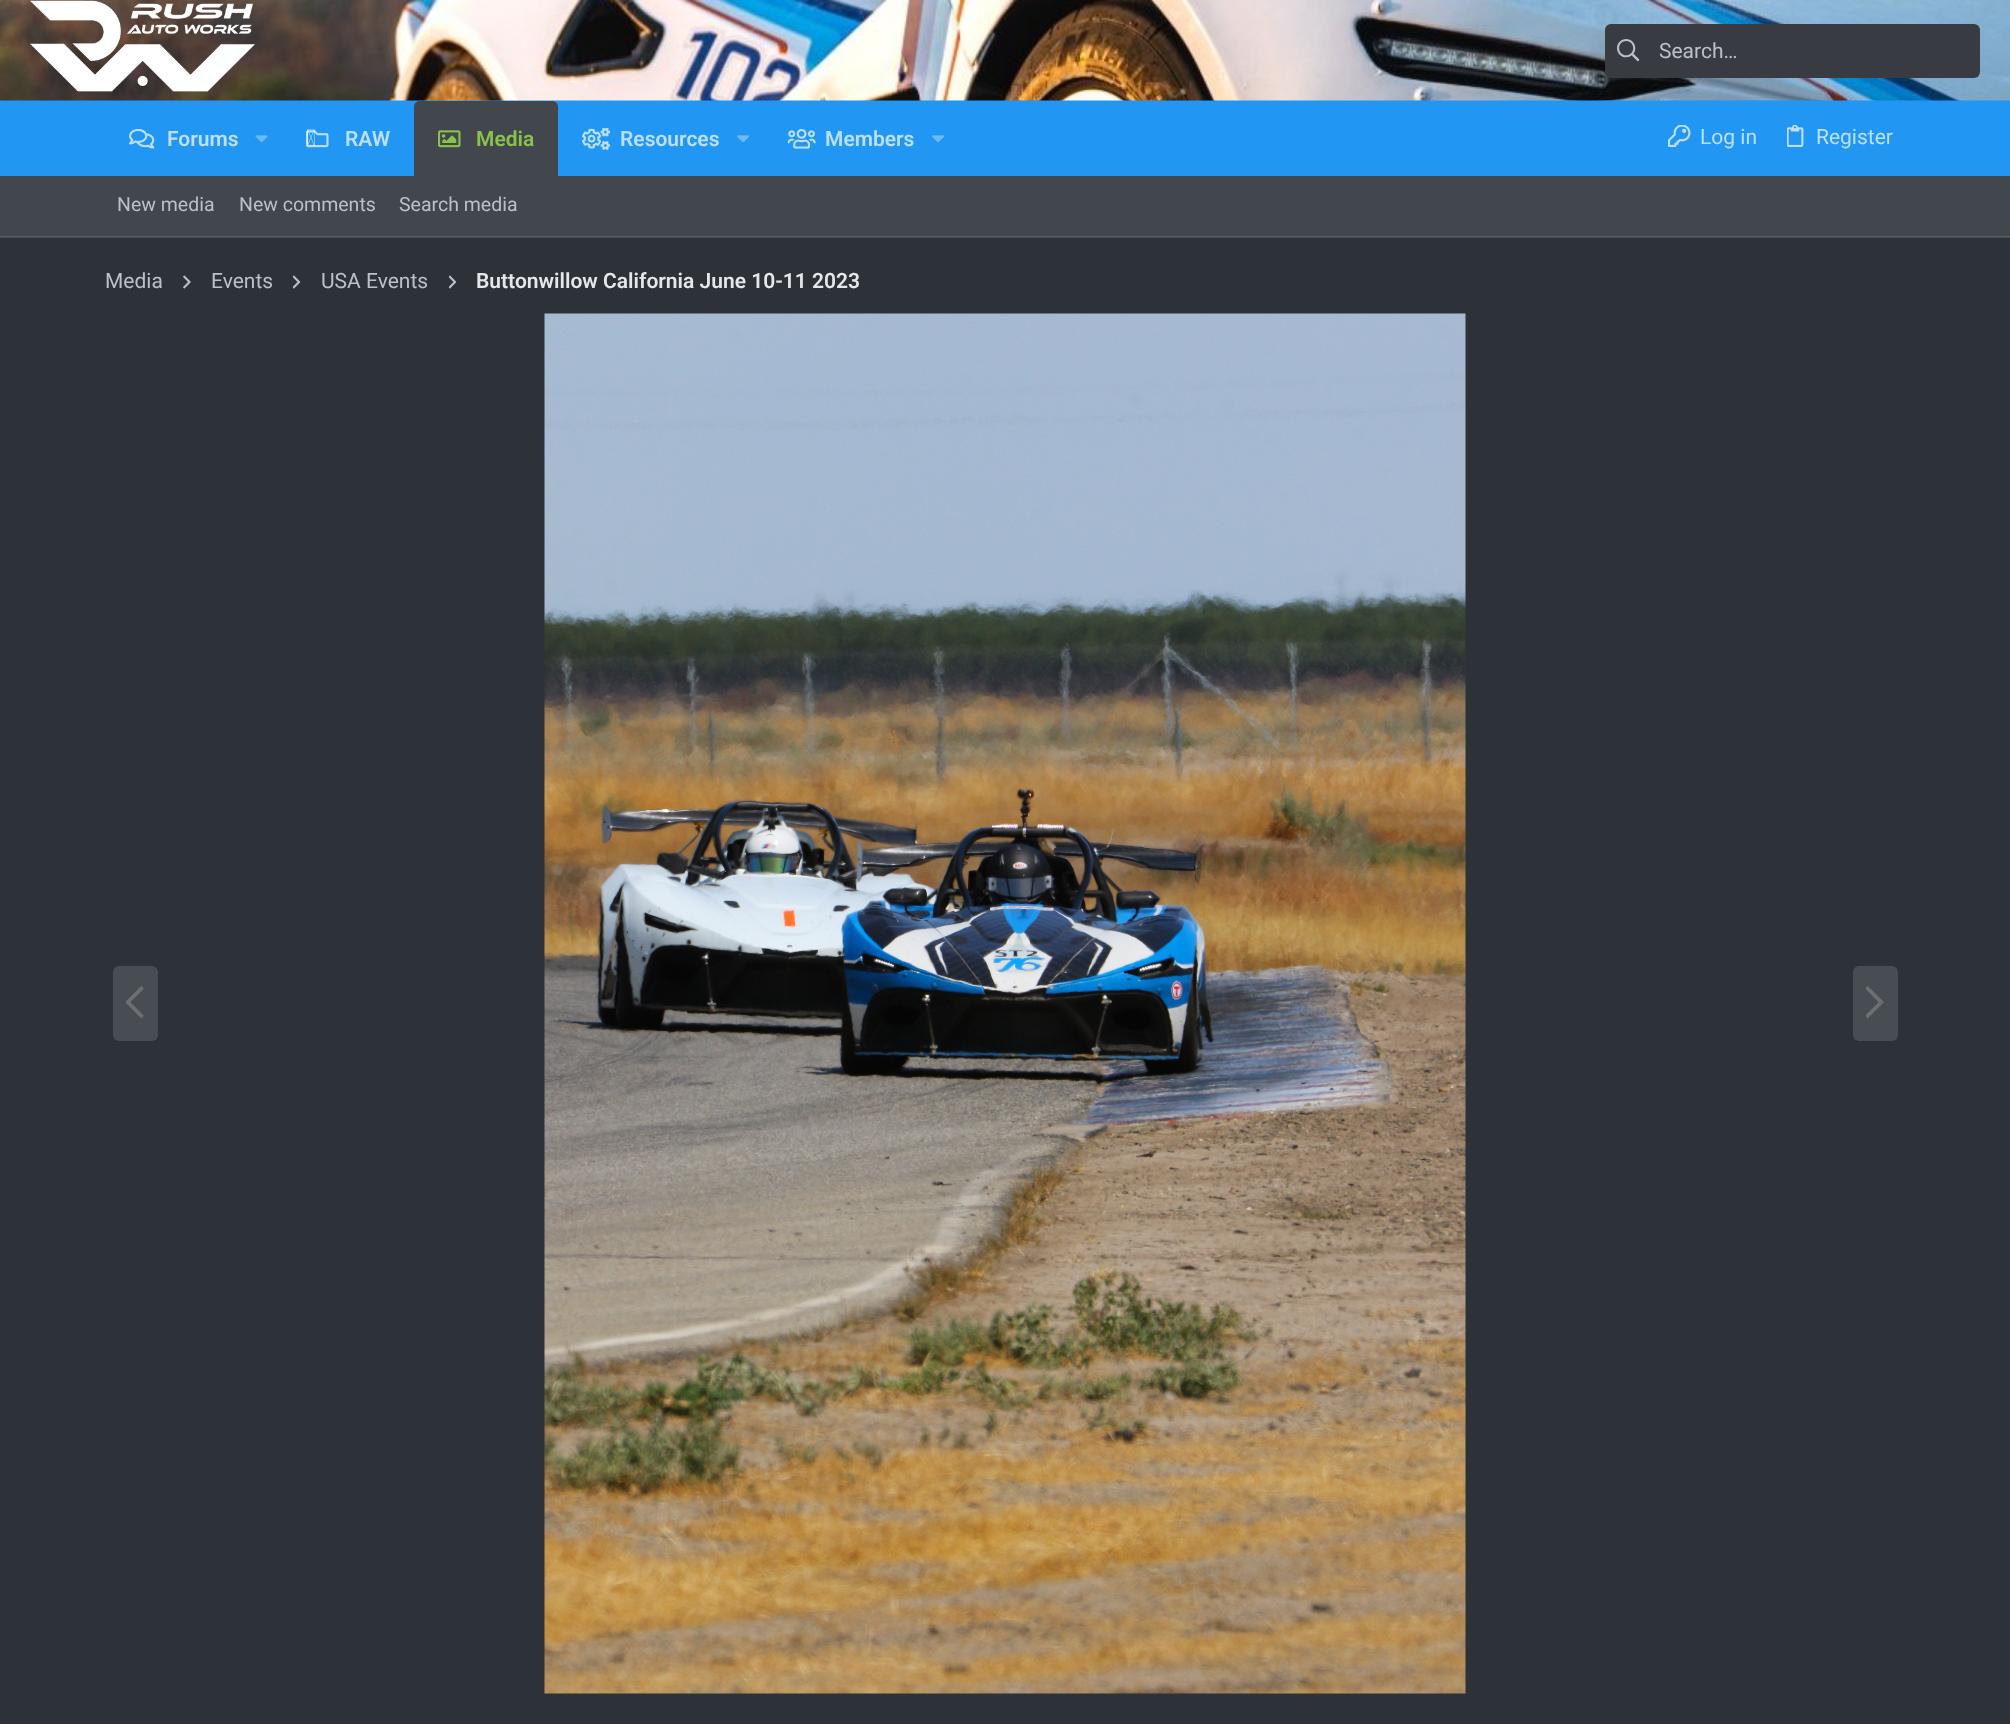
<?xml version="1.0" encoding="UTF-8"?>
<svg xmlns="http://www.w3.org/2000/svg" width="2010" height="1724">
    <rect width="100%" height="100%" fill="#2D3238"/>
    <rect x="0" y="237" width="2010" height="1" fill="#464B50"/>
    <rect x="0" y="100" width="2010" height="76" fill="#2196F3"/>
    <image x="0" y="0" width="2010" height="101" href="img_01.png"/>
    <image x="30" y="0" width="225" height="92" href="img_02.png"/>
    <rect x="1605" y="24" width="375" height="54" rx="6" fill="#383C42"/>
    <image x="1617" y="39" width="23" height="23" href="img_03.png"/>
    <text x="1659" y="58" font-family="Roboto" font-size="21" fill="#BCC0C7">Search…</text>
    <image x="129" y="128" width="26" height="21" href="img_04.png"/>
    <text x="167" y="146" font-family="Roboto" font-size="21" font-weight="600" fill="#BCE0FB">Forums</text>
    <image x="255" y="135" width="13" height="8" href="img_05.png"/>
    <image x="306" y="130" width="23" height="18" href="img_06.png"/>
    <image x="307" y="129" width="8" height="17" href="img_07.png"/>
    <text x="345" y="146" font-family="Roboto" font-size="21" font-weight="600" fill="#BCE0FB">RAW</text>
    <path d="M 420 101 H 552 C 555.5 101 558 103.5 558 107 V 176 H 414 V 107 C 414 103.5 416.5 101 420 101 Z" fill="#42464D"/>
    <image x="438" y="130" width="23" height="18" href="img_08.png"/>
    <text x="476" y="146" font-family="Roboto" font-size="21" font-weight="600" fill="#8BC34A">Media</text>
    <image x="582" y="128" width="29" height="22" href="img_09.png"/>
    <text x="620" y="146" font-family="Roboto" font-size="21" font-weight="600" fill="#BCE0FB">Resources</text>
    <image x="737" y="135" width="13" height="8" href="img_10.png"/>
    <image x="788" y="128" width="28" height="21" href="img_11.png"/>
    <text x="825" y="146" font-family="Roboto" font-size="21" font-weight="600" fill="#BCE0FB">Members</text>
    <image x="932" y="135" width="13" height="8" href="img_10.png"/>
    <image x="1668" y="125" width="23" height="22" href="img_12.png"/>
    <text x="1700" y="144" font-family="Roboto" font-size="21" fill="#BCE0FB">Log in</text>
    <image x="1787" y="125" width="17" height="22" href="img_13.png"/>
    <text x="1816" y="144" font-family="Roboto" font-size="21" fill="#BCE0FB">Register</text>
    <rect x="0" y="176" width="2010" height="60" fill="#42464D"/>
    <rect x="0" y="236" width="2010" height="1" fill="#595C62"/>
    <text x="117" y="211" font-family="Roboto" font-size="19.5" fill="#BCC0C7">New media</text>
    <text x="239" y="211" font-family="Roboto" font-size="19.5" fill="#BCC0C7">New comments</text>
    <text x="399" y="211" font-family="Roboto" font-size="19.5" fill="#BCC0C7">Search media</text>
    <text x="105" y="288" font-family="Roboto" font-size="21" fill="#BCC0C7">Media</text>
    <image x="183" y="275" width="8" height="14" href="img_14.png"/>
    <text x="211" y="288" font-family="Roboto" font-size="21" fill="#BCC0C7">Events</text>
    <image x="293" y="275" width="8" height="14" href="img_15.png"/>
    <text x="321" y="288" font-family="Roboto" font-size="21" fill="#BCC0C7">USA Events</text>
    <image x="449" y="275" width="7" height="14" href="img_16.png"/>
    <text x="476" y="288" font-family="Roboto" font-size="21" font-weight="600" fill="#E6E7EA">Buttonwillow California June 10-11 2023</text>
    <rect x="113" y="966" width="45" height="75" rx="6" fill="#484D53"/>
    <image x="126" y="986" width="18" height="32" href="img_17.png"/>
    <image x="544" y="313" width="922" height="1381" href="img_18.png"/>
    <rect x="1853" y="966" width="45" height="75" rx="6" fill="#484D53"/>
    <image x="1866" y="986" width="18" height="32" href="img_19.png"/>
</svg>
